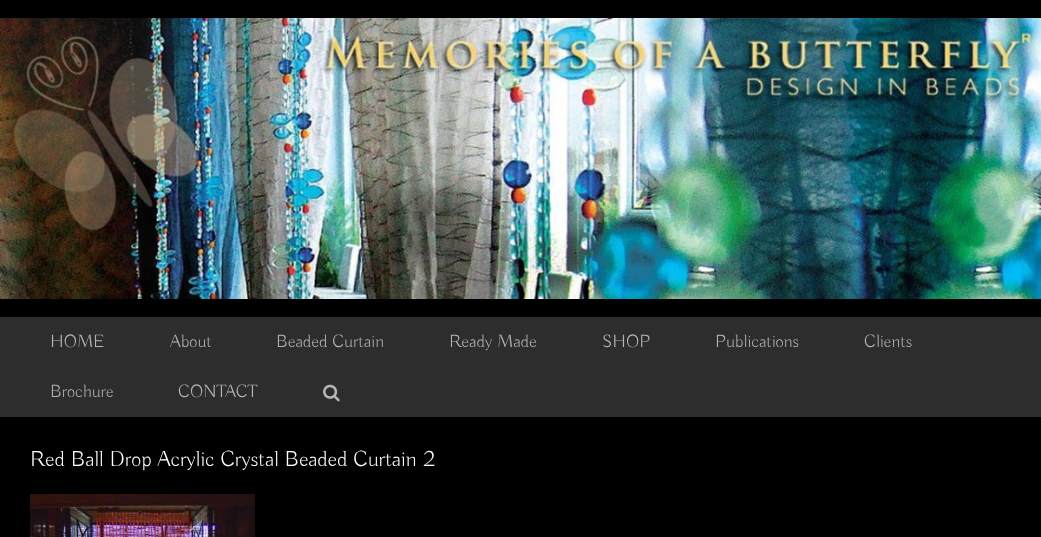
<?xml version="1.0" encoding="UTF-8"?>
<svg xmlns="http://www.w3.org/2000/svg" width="1041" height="537">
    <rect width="100%" height="100%" fill="#000000"/>
    <image x="0" y="18" width="1041" height="281" href="img_01.png"/>
    <rect x="0" y="317" width="1041" height="100" fill="#2D2D2D"/>
    <text x="50" y="347" font-family="Buda" font-size="18" font-weight="300" fill="#B5B5B5">HOME</text>
    <text x="170" y="347" font-family="Buda" font-size="18" font-weight="300" fill="#B5B5B5">About</text>
    <text x="276" y="347" font-family="Buda" font-size="18" font-weight="300" fill="#B5B5B5">Beaded Curtain</text>
    <text x="449" y="347" font-family="Buda" font-size="18" font-weight="300" fill="#B5B5B5">Ready Made</text>
    <text x="602" y="347" font-family="Buda" font-size="18" font-weight="300" fill="#B5B5B5">SHOP</text>
    <text x="715" y="347" font-family="Buda" font-size="18" font-weight="300" fill="#B5B5B5">Publications</text>
    <text x="864" y="347" font-family="Buda" font-size="18" font-weight="300" fill="#B5B5B5">Clients</text>
    <text x="50" y="397" font-family="Buda" font-size="18" font-weight="300" fill="#B5B5B5">Brochure</text>
    <text x="178" y="397" font-family="Buda" font-size="18" font-weight="300" fill="#B5B5B5">CONTACT</text>
    <image x="323" y="384" width="17" height="18" href="img_02.png"/>
    <text x="30" y="466" font-family="Buda" font-size="22" font-weight="300" fill="#FFFFFF">Red Ball Drop Acrylic Crystal Beaded Curtain 2</text>
    <image x="30" y="494" width="225" height="43" href="img_03.png"/>
</svg>
